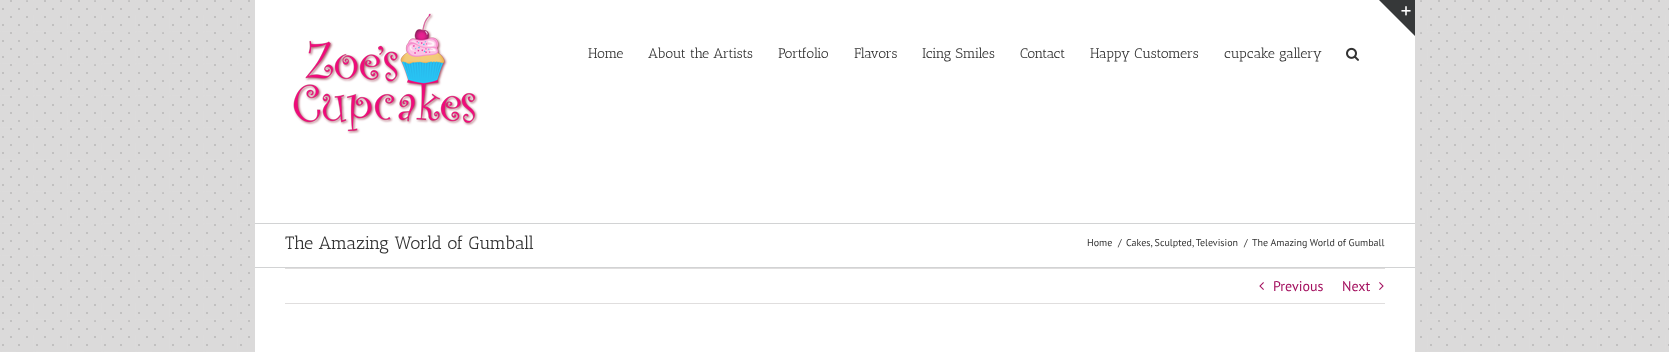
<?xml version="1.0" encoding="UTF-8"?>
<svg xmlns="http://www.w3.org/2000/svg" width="1669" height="352">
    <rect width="100%" height="100%" fill="#FFFFFF"/>
    <image x="0" y="0" width="1669" height="352" href="img_01.png"/>
    <rect x="255" y="0" width="1160" height="223" fill="#FFFFFF"/>
    <path d="M 1379 0 H 1415 V 36 Z" fill="#363839"/>
    <image x="1401" y="6" width="10" height="10" href="img_02.png"/>
    <image x="293" y="13" width="185" height="121" href="img_03.png"/>
    <text x="588" y="58" font-family="Antic Slab" font-size="14" fill="#333333">Home</text>
    <text x="648" y="58" font-family="Antic Slab" font-size="14" fill="#333333">About the Artists</text>
    <text x="778" y="58" font-family="Antic Slab" font-size="14" fill="#333333">Portfolio</text>
    <text x="854" y="58" font-family="Antic Slab" font-size="14" fill="#333333">Flavors</text>
    <text x="922" y="58" font-family="Antic Slab" font-size="14" fill="#333333">Icing Smiles</text>
    <text x="1020" y="58" font-family="Antic Slab" font-size="14" fill="#333333">Contact</text>
    <text x="1090" y="58" font-family="Antic Slab" font-size="14" fill="#333333">Happy Customers</text>
    <text x="1224" y="58" font-family="Antic Slab" font-size="14" fill="#333333">cupcake gallery</text>
    <image x="1346" y="47" width="13" height="14" href="img_04.png"/>
    <rect x="255" y="224" width="1160" height="43" fill="#FFFFFF"/>
    <rect x="255" y="223" width="1160" height="1" fill="#D2D3D4"/>
    <rect x="255" y="267" width="1160" height="1" fill="#D2D3D4"/>
    <text x="285" y="249" font-family="Antic Slab" font-size="18" fill="#333333">The Amazing World of Gumball</text>
    <text x="1087" y="246" font-family="PT Sans" font-size="10" fill="#333333">Home</text>
    <text x="1118" y="246" font-family="PT Sans" font-size="10" fill="#333333">/</text>
    <text x="1126" y="246" font-family="PT Sans" font-size="10" fill="#333333">Cakes, Sculpted, Television</text>
    <text x="1244" y="246" font-family="PT Sans" font-size="10" fill="#333333">/</text>
    <text x="1252" y="246" font-family="PT Sans" font-size="10" fill="#333333">The Amazing World of Gumball</text>
    <rect x="255" y="268" width="1160" height="84" fill="#FFFFFF"/>
    <rect x="285" y="268" width="1100" height="1" fill="#E0DEDE"/>
    <rect x="285" y="303" width="1100" height="1" fill="#E0DEDE"/>
    <image x="1259" y="282" width="5" height="8" href="img_05.png"/>
    <text x="1273" y="291" font-family="PT Sans" font-size="14" fill="#A30F5E">Previous</text>
    <text x="1342" y="291" font-family="PT Sans" font-size="14" fill="#A30F5E">Next</text>
    <image x="1379" y="282" width="5" height="8" href="img_06.png"/>
</svg>
